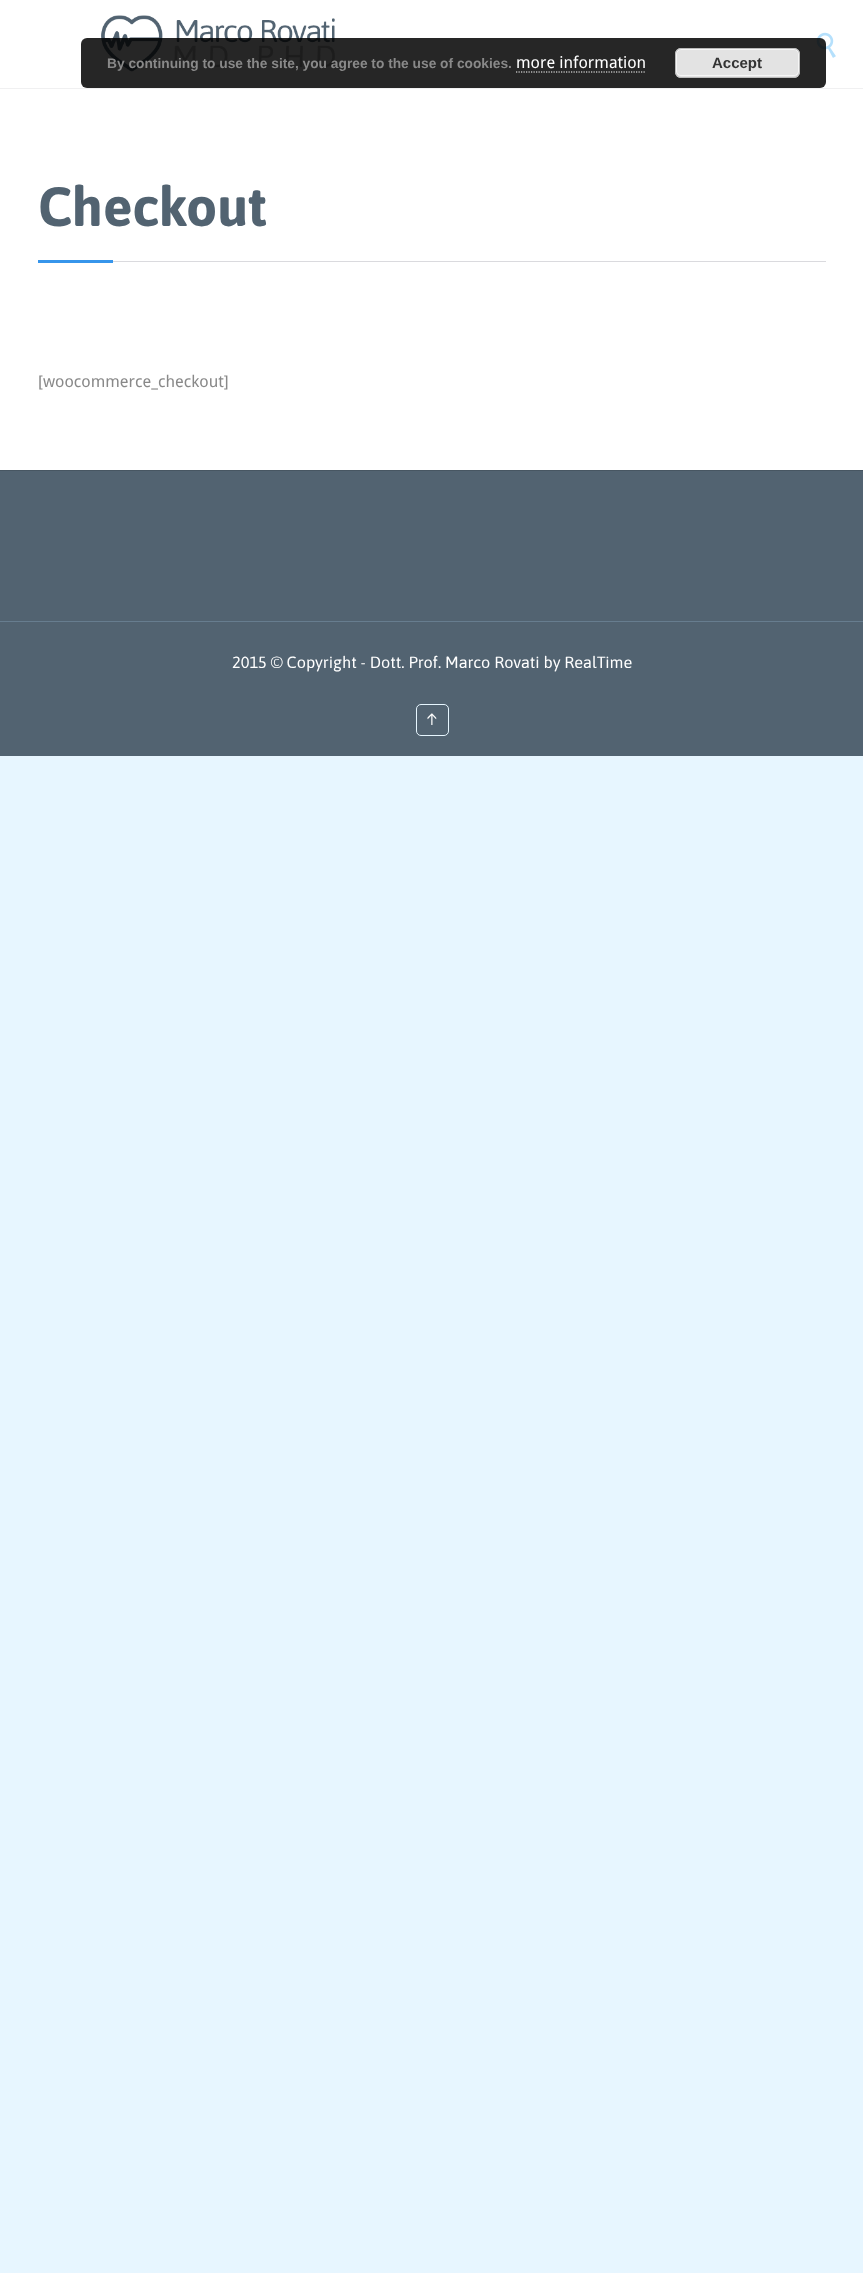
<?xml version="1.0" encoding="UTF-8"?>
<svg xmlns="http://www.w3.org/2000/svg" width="863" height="2273">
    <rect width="100%" height="100%" fill="#E7F6FF"/>
    <rect x="0" y="0" width="863" height="88" fill="#FFFFFF"/>
    <image x="101" y="15" width="235" height="57" href="img_01.png"/>
    <image x="816" y="32" width="20" height="26" href="img_02.png"/>
    <rect x="81" y="38" width="745" height="50" rx="6" fill="#000000" fill-opacity="0.85"/>
    <text x="107" y="68" font-family="Liberation Sans" font-size="13.75" font-weight="700" fill="#898989">By continuing to use the site, you agree to the use of cookies.</text>
    <text x="516" y="68" font-family="Droid Sans" font-size="16.25" fill="#FFFFFF">more information</text>
    <path d="M 516 72 H 646" fill="none" stroke="#FFFFFF" stroke-width="1.2" stroke-dasharray="1.25 1.25"/>
    <rect x="675" y="48" width="125" height="30" rx="6" fill="#E3E3E3"/>
    <rect x="676.5" y="49.5" width="122" height="26" rx="4.5" fill="none" stroke="#F6F6F6"/>
    <rect x="675.5" y="48.5" width="124" height="29" rx="5.5" fill="none" stroke="#BBBBBB"/>
    <text x="712" y="68" font-family="Liberation Sans" font-size="15" font-weight="700" fill="#333333">Accept</text>
    <rect x="0" y="88" width="863" height="1" fill="#F0F0F1"/>
    <rect x="0" y="89" width="863" height="381" fill="#FFFFFF"/>
    <rect x="113" y="261" width="713" height="1" fill="#DADADE"/>
    <text x="38" y="226" font-family="Asap" font-size="55" font-weight="700" fill="#526371">Checkout</text>
    <rect x="38" y="260" width="75" height="3" fill="#3695EB"/>
    <text x="38" y="387" font-family="Droid Sans" font-size="16.25" fill="#898989">[woocommerce_checkout]</text>
    <rect x="0" y="471" width="863" height="285" fill="#526371"/>
    <rect x="0" y="470" width="863" height="1" fill="#475662"/>
    <rect x="0" y="621" width="863" height="1" fill="#677D8F"/>
    <text x="232" y="668" font-family="Asap" font-size="16.25" fill="#FFFFFF">2015 © Copyright - Dott. Prof. Marco Rovati by RealTime</text>
    <rect x="416.5" y="704.5" width="32" height="31" rx="4.5" fill="none" stroke="#E7F6FF"/>
    <text x="427" y="725" font-family="Asap" font-size="16.25" fill="#FFFFFF">↑</text>
</svg>
